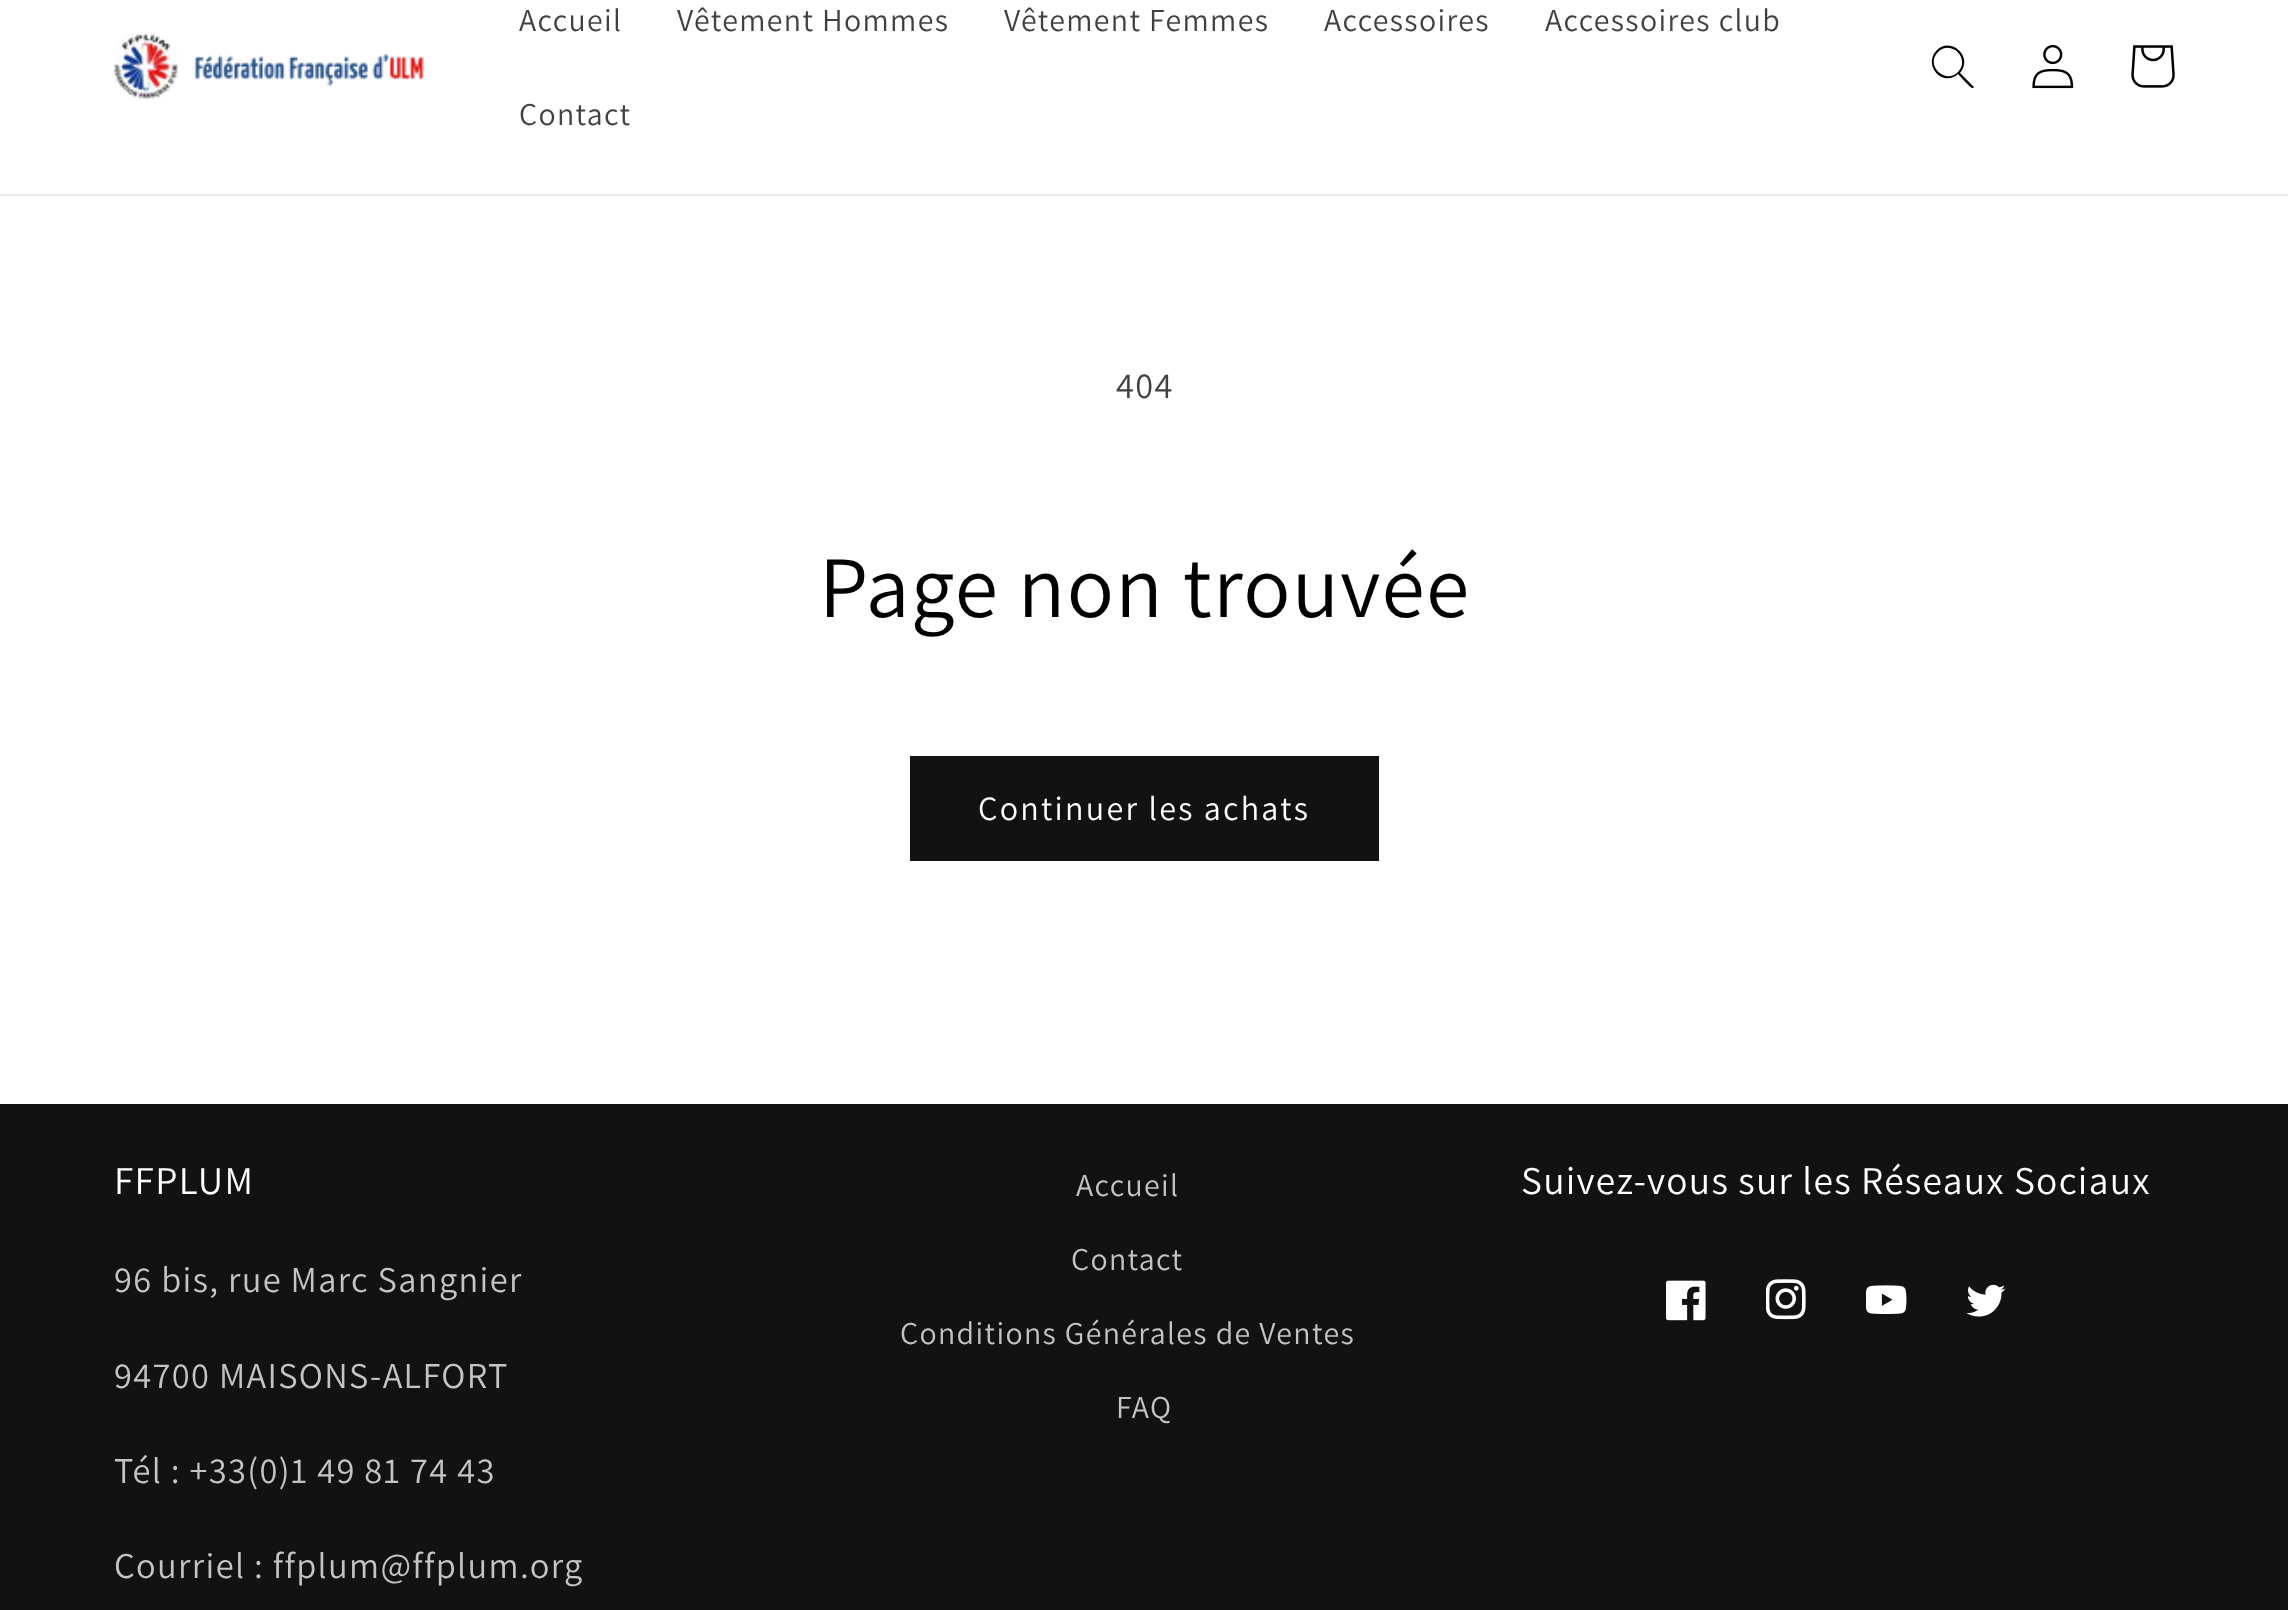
<?xml version="1.0" encoding="UTF-8"?>
<svg xmlns="http://www.w3.org/2000/svg" width="2288" height="1610">
    <rect width="100%" height="100%" fill="#FFFFFF"/>
    <rect x="0" y="194" width="2288" height="2" fill="#EBEBEB"/>
    <image x="113" y="32" width="311" height="68" href="img_01.png"/>
    <text x="519" y="31" font-family="Assistant" font-size="31.8" letter-spacing="1.35" fill="#404040">Accueil</text>
    <text x="677" y="31" font-family="Assistant" font-size="31.8" letter-spacing="1.35" fill="#404040">Vêtement Hommes</text>
    <text x="1004" y="31" font-family="Assistant" font-size="31.8" letter-spacing="1.35" fill="#404040">Vêtement Femmes</text>
    <text x="1324" y="31" font-family="Assistant" font-size="31.8" letter-spacing="1.35" fill="#404040">Accessoires</text>
    <text x="1545" y="31" font-family="Assistant" font-size="31.8" letter-spacing="1.35" fill="#404040">Accessoires club</text>
    <text x="519" y="125" font-family="Assistant" font-size="31.8" letter-spacing="1.35" fill="#404040">Contact</text>
    <path d="M 1958 72 C 1945 85 1925 65 1938 52 C 1951 39 1971 59 1958 72 Z M 1958 74 C 1943 88 1922 65 1937 50 C 1951 36 1974 57 1960 73 L 1974 87 L 1973 88 C 1971 89 1960 76 1958 74 Z" fill="#000000" fill-rule="evenodd"/>
    <image x="2032" y="44" width="42" height="45" href="img_02.png"/>
    <image x="2131" y="45" width="44" height="43" href="img_03.png"/>
    <text x="1116" y="398" font-family="Assistant" font-size="36.4" letter-spacing="1.35" fill="#404040">404</text>
    <text x="819" y="617" font-family="Assistant" font-size="87.5" letter-spacing="1.3" fill="#000000">Page non trouvée</text>
    <rect x="910" y="756" width="469" height="105" fill="#121212"/>
    <text x="978" y="820" font-family="Assistant" font-size="34.1" letter-spacing="2.25" fill="#FFFFFF">Continuer les achats</text>
    <rect x="0" y="1104" width="2288" height="506" fill="#121212"/>
    <text x="114" y="1194" font-family="Assistant" font-size="39.4" letter-spacing="1.3" fill="#FFFFFF">FFPLUM</text>
    <text x="114" y="1292" font-family="Assistant" font-size="36.4" letter-spacing="1.35" fill="#C4C4C4">96 bis, rue Marc Sangnier</text>
    <text x="114" y="1388" font-family="Assistant" font-size="36.4" letter-spacing="1.35" fill="#C4C4C4">94700 MAISONS-ALFORT</text>
    <text x="114" y="1483" font-family="Assistant" font-size="36.4" letter-spacing="1.35" fill="#C4C4C4">Tél : +33(0)1 49 81 74 43</text>
    <text x="114" y="1578" font-family="Assistant" font-size="36.4" letter-spacing="1.35" fill="#C4C4C4">Courriel : ffplum@ffplum.org</text>
    <text x="1076" y="1196" font-family="Assistant" font-size="31.8" letter-spacing="1.35" fill="#C4C4C4">Accueil</text>
    <text x="1071" y="1270" font-family="Assistant" font-size="31.8" letter-spacing="1.35" fill="#C4C4C4">Contact</text>
    <text x="900" y="1344" font-family="Assistant" font-size="31.8" letter-spacing="1.35" fill="#C4C4C4">Conditions Générales de Ventes</text>
    <text x="1116" y="1418" font-family="Assistant" font-size="31.8" letter-spacing="1.35" fill="#C4C4C4">FAQ</text>
    <text x="1521" y="1194" font-family="Assistant" font-size="39.4" letter-spacing="1.3" fill="#FFFFFF">Suivez-vous sur les Réseaux Sociaux</text>
    <image x="1666" y="1280" width="40" height="41" href="img_04.png"/>
    <image x="1766" y="1279" width="40" height="41" href="img_05.png"/>
    <image x="1866" y="1285" width="41" height="30" href="img_06.png"/>
    <image x="1966" y="1284" width="40" height="33" href="img_07.png"/>
</svg>
